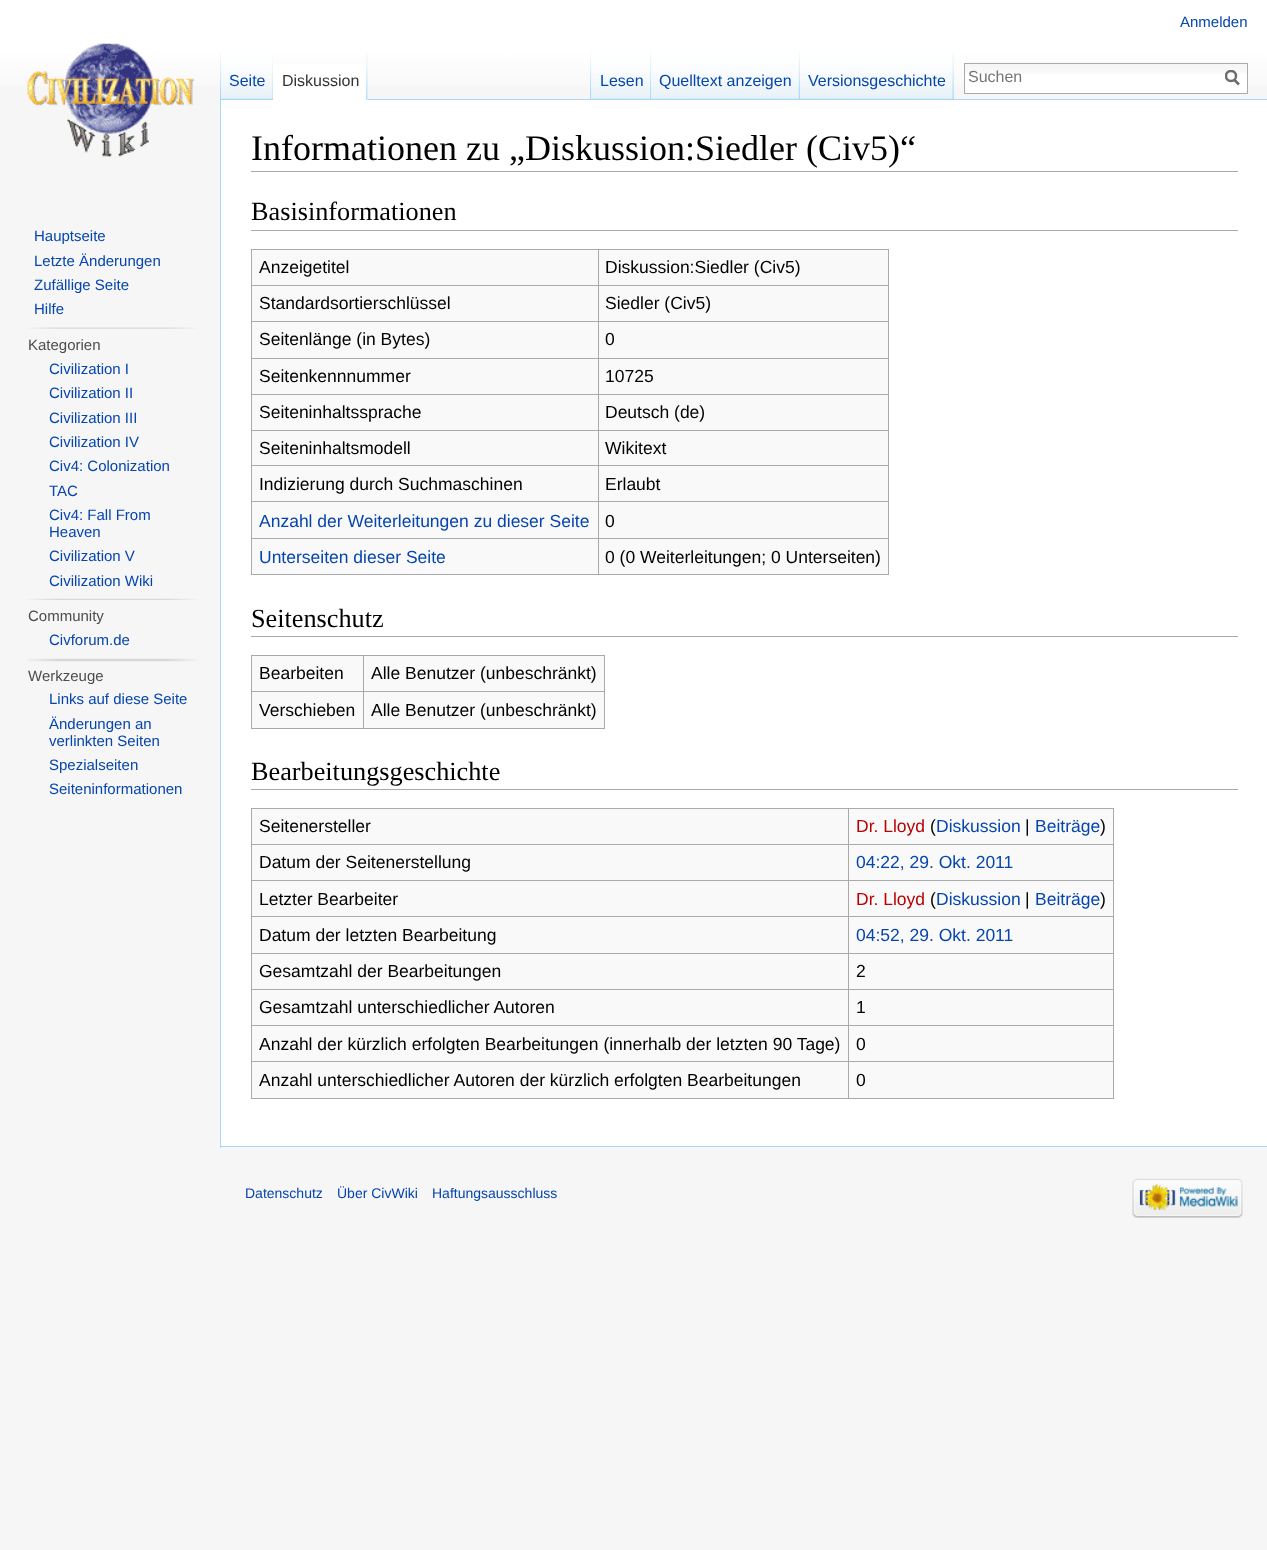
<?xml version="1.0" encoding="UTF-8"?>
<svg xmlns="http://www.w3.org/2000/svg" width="1267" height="1550">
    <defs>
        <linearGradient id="g1" gradientUnits="userSpaceOnUse" x1="634" y1="0" x2="634" y2="100"><stop offset="0.5" stop-color="#FFFFFF"/><stop offset="1" stop-color="#F6F6F6"/></linearGradient>
        <clipPath id="clip1"><rect x="1225" y="70" width="15" height="16"/></clipPath>
    </defs>
    <rect width="100%" height="100%" fill="#F6F6F6"/>
    <rect x="0" y="0" width="1267" height="86" fill="url(#g1)"/>
    <text x="1180" y="27" font-family="Liberation Sans" font-size="15" fill="#0645AD">Anmelden</text>
    <image x="220" y="50" width="2" height="49" href="img_01.png"/>
    <rect x="220" y="99" width="1047" height="1" fill="#A7D7F9"/>
    <image x="221" y="50" width="52" height="50" href="img_02.png"/>
    <image x="272" y="53" width="1" height="47" href="img_03.png"/>
    <text x="229" y="86" font-family="Liberation Sans" font-size="16" fill="#0645AD">Seite</text>
    <rect x="273" y="64" width="95" height="36" fill="#FFFFFF"/>
    <image x="366" y="52" width="2" height="48" href="img_04.png"/>
    <text x="282" y="86" font-family="Liberation Sans" font-size="16" fill="#333333">Diskussion</text>
    <image x="590" y="50" width="2" height="49" href="img_01.png"/>
    <image x="953" y="52" width="1" height="47" href="img_05.png"/>
    <image x="591" y="50" width="61" height="50" href="img_06.png"/>
    <image x="650" y="50" width="2" height="49" href="img_07.png"/>
    <text x="600" y="86" font-family="Liberation Sans" font-size="16" fill="#0645AD">Lesen</text>
    <image x="651" y="50" width="149" height="50" href="img_08.png"/>
    <image x="798" y="50" width="2" height="49" href="img_09.png"/>
    <text x="659" y="86" font-family="Liberation Sans" font-size="16" fill="#0645AD">Quelltext anzeigen</text>
    <image x="800" y="50" width="154" height="50" href="img_10.png"/>
    <image x="952" y="53" width="2" height="47" href="img_11.png"/>
    <text x="808" y="86" font-family="Liberation Sans" font-size="16" fill="#0645AD">Versionsgeschichte</text>
    <rect x="965" y="74" width="282" height="19" fill="#FFFFFF"/>
    <image x="965" y="64" width="282" height="10" href="img_12.png"/>
    <rect x="964.5" y="63.5" width="283" height="30" fill="none" stroke="#AAAAAA"/>
    <text x="968" y="82" font-family="Liberation Sans" font-size="16" fill="#757575">Suchen</text>
    <path d="M 1239 84.5 L 1234 79.5" fill="none" stroke="#6C6C6C" stroke-width="2.5"/>
    <g clip-path="url(#clip1)">
        <circle cx="1231" cy="76" r="5" fill="none" stroke="#6C6C6C" stroke-width="2.5"/>
    </g>
    <image x="27" y="43" width="167" height="114" href="img_13.png"/>
    <text font-family="Liberation Sans" font-size="15" fill="#0645AD">
        <tspan x="34" y="241">Hauptseite</tspan>
        <tspan x="34" y="266">Letzte Änderungen</tspan>
        <tspan x="34" y="290">Zufällige Seite</tspan>
        <tspan x="34" y="314">Hilfe</tspan>
    </text>
    <image x="27" y="327" width="170" height="2" href="img_14.png"/>
    <text x="28" y="350" font-family="Liberation Sans" font-size="15" fill="#4D4D4D">Kategorien</text>
    <text font-family="Liberation Sans" font-size="15" fill="#0645AD">
        <tspan x="49" y="374">Civilization I</tspan>
        <tspan x="49" y="398">Civilization II</tspan>
        <tspan x="49" y="423">Civilization III</tspan>
        <tspan x="49" y="447">Civilization IV</tspan>
        <tspan x="49" y="471">Civ4: Colonization</tspan>
        <tspan x="49" y="496">TAC</tspan>
        <tspan x="49" y="520">Civ4: Fall From</tspan>
        <tspan x="49" y="537">Heaven</tspan>
        <tspan x="49" y="561">Civilization V</tspan>
        <tspan x="49" y="586">Civilization Wiki</tspan>
    </text>
    <image x="27" y="598" width="170" height="2" href="img_15.png"/>
    <text x="28" y="621" font-family="Liberation Sans" font-size="15" fill="#4D4D4D">Community</text>
    <text x="49" y="645" font-family="Liberation Sans" font-size="15" fill="#0645AD">Civforum.de</text>
    <image x="27" y="658" width="170" height="4" href="img_16.png"/>
    <text x="28" y="681" font-family="Liberation Sans" font-size="15" fill="#4D4D4D">Werkzeuge</text>
    <text font-family="Liberation Sans" font-size="15" fill="#0645AD">
        <tspan x="49" y="704">Links auf diese Seite</tspan>
        <tspan x="49" y="729">Änderungen an</tspan>
        <tspan x="49" y="746">verlinkten Seiten</tspan>
        <tspan x="49" y="770">Spezialseiten</tspan>
        <tspan x="49" y="794">Seiteninformationen</tspan>
    </text>
    <rect x="221" y="100" width="1046" height="1046" fill="#FFFFFF"/>
    <rect x="220" y="1146" width="1047" height="1" fill="#A7D7F9"/>
    <rect x="220" y="99" width="1" height="1049" fill="#A7D7F9"/>
    <rect x="251" y="171" width="987" height="1" fill="#AAAAAA"/>
    <text x="251" y="160" font-family="Liberation Serif" font-size="36" fill="#000000">Informationen zu „Diskussion:Siedler (Civ5)“</text>
    <rect x="251" y="230" width="987" height="1" fill="#AAAAAA"/>
    <text x="251" y="220" font-family="Liberation Serif" font-size="26.25" fill="#000000">Basisinformationen</text>
    <rect x="252" y="250" width="636" height="324" fill="#F9F9F9"/>
    <rect x="251" y="249" width="638" height="1" fill="#AAAAAA"/>
    <rect x="888" y="249" width="1" height="326" fill="#AAAAAA"/>
    <rect x="251" y="574" width="638" height="1" fill="#AAAAAA"/>
    <rect x="251" y="249" width="1" height="326" fill="#AAAAAA"/>
    <text x="259" y="273" font-family="Liberation Sans" font-size="17.5" fill="#000000">Anzeigetitel</text>
    <rect x="598" y="285" width="291" height="1" fill="#AAAAAA"/>
    <rect x="598" y="321" width="291" height="1" fill="#AAAAAA"/>
    <rect x="598" y="358" width="291" height="1" fill="#AAAAAA"/>
    <rect x="598" y="394" width="291" height="1" fill="#AAAAAA"/>
    <rect x="598" y="430" width="291" height="1" fill="#AAAAAA"/>
    <rect x="598" y="465" width="291" height="1" fill="#AAAAAA"/>
    <rect x="598" y="501" width="291" height="1" fill="#AAAAAA"/>
    <rect x="598" y="538" width="291" height="1" fill="#AAAAAA"/>
    <rect x="598" y="538" width="1" height="37" fill="#AAAAAA"/>
    <rect x="251" y="538" width="348" height="1" fill="#AAAAAA"/>
    <rect x="598" y="501" width="1" height="38" fill="#AAAAAA"/>
    <rect x="251" y="501" width="348" height="1" fill="#AAAAAA"/>
    <rect x="598" y="465" width="1" height="38" fill="#AAAAAA"/>
    <rect x="251" y="465" width="348" height="1" fill="#AAAAAA"/>
    <rect x="598" y="430" width="1" height="36" fill="#AAAAAA"/>
    <rect x="251" y="430" width="348" height="1" fill="#AAAAAA"/>
    <rect x="598" y="394" width="1" height="37" fill="#AAAAAA"/>
    <rect x="251" y="394" width="348" height="1" fill="#AAAAAA"/>
    <rect x="598" y="358" width="1" height="37" fill="#AAAAAA"/>
    <rect x="251" y="358" width="348" height="1" fill="#AAAAAA"/>
    <rect x="598" y="321" width="1" height="38" fill="#AAAAAA"/>
    <rect x="251" y="321" width="348" height="1" fill="#AAAAAA"/>
    <rect x="598" y="285" width="1" height="38" fill="#AAAAAA"/>
    <rect x="251" y="285" width="348" height="1" fill="#AAAAAA"/>
    <rect x="598" y="249" width="1" height="37" fill="#AAAAAA"/>
    <text x="605" y="273" font-family="Liberation Sans" font-size="17.5" fill="#000000">Diskussion:Siedler (Civ5)</text>
    <text x="259" y="309" font-family="Liberation Sans" font-size="17.5" fill="#000000">Standardsortierschlüssel</text>
    <text x="605" y="309" font-family="Liberation Sans" font-size="17.5" fill="#000000">Siedler (Civ5)</text>
    <text x="259" y="345" font-family="Liberation Sans" font-size="17.5" fill="#000000">Seitenlänge (in Bytes)</text>
    <text x="605" y="345" font-family="Liberation Sans" font-size="17.5" fill="#000000">0</text>
    <text x="259" y="382" font-family="Liberation Sans" font-size="17.5" fill="#000000">Seitenkennnummer</text>
    <text x="605" y="382" font-family="Liberation Sans" font-size="17.5" fill="#000000">10725</text>
    <text x="259" y="418" font-family="Liberation Sans" font-size="17.5" fill="#000000">Seiteninhaltssprache</text>
    <text x="605" y="418" font-family="Liberation Sans" font-size="17.5" fill="#000000">Deutsch (de)</text>
    <text x="259" y="454" font-family="Liberation Sans" font-size="17.5" fill="#000000">Seiteninhaltsmodell</text>
    <text x="605" y="454" font-family="Liberation Sans" font-size="17.5" fill="#000000">Wikitext</text>
    <text x="259" y="490" font-family="Liberation Sans" font-size="17.5" fill="#000000">Indizierung durch Suchmaschinen</text>
    <text x="605" y="490" font-family="Liberation Sans" font-size="17.5" fill="#000000">Erlaubt</text>
    <text x="259" y="527" font-family="Liberation Sans" font-size="17.5" fill="#0645AD">Anzahl der Weiterleitungen zu dieser Seite</text>
    <text x="605" y="527" font-family="Liberation Sans" font-size="17.5" fill="#000000">0</text>
    <text x="259" y="563" font-family="Liberation Sans" font-size="17.5" fill="#0645AD">Unterseiten dieser Seite</text>
    <text x="605" y="563" font-family="Liberation Sans" font-size="17.5" fill="#000000">0 (0 Weiterleitungen; 0 Unterseiten)</text>
    <rect x="251" y="636" width="987" height="1" fill="#AAAAAA"/>
    <text x="251" y="627" font-family="Liberation Serif" font-size="26.25" fill="#000000">Seitenschutz</text>
    <rect x="252" y="656" width="352" height="72" fill="#F9F9F9"/>
    <rect x="251" y="655" width="354" height="1" fill="#AAAAAA"/>
    <rect x="604" y="655" width="1" height="74" fill="#AAAAAA"/>
    <rect x="251" y="728" width="354" height="1" fill="#AAAAAA"/>
    <rect x="251" y="655" width="1" height="74" fill="#AAAAAA"/>
    <text x="259" y="679" font-family="Liberation Sans" font-size="17.5" fill="#000000">Bearbeiten</text>
    <rect x="363" y="691" width="242" height="1" fill="#AAAAAA"/>
    <rect x="363" y="691" width="1" height="38" fill="#AAAAAA"/>
    <rect x="251" y="691" width="113" height="1" fill="#AAAAAA"/>
    <rect x="363" y="655" width="1" height="38" fill="#AAAAAA"/>
    <text x="371" y="679" font-family="Liberation Sans" font-size="17.5" fill="#000000">Alle Benutzer (unbeschränkt)</text>
    <text x="259" y="716" font-family="Liberation Sans" font-size="17.5" fill="#000000">Verschieben</text>
    <text x="371" y="716" font-family="Liberation Sans" font-size="17.5" fill="#000000">Alle Benutzer (unbeschränkt)</text>
    <rect x="251" y="789" width="987" height="1" fill="#AAAAAA"/>
    <text x="251" y="780" font-family="Liberation Serif" font-size="26.25" fill="#000000">Bearbeitungsgeschichte</text>
    <rect x="252" y="809" width="861" height="289" fill="#F9F9F9"/>
    <rect x="251" y="808" width="863" height="1" fill="#AAAAAA"/>
    <rect x="1113" y="808" width="1" height="291" fill="#AAAAAA"/>
    <rect x="251" y="1098" width="863" height="1" fill="#AAAAAA"/>
    <rect x="251" y="808" width="1" height="291" fill="#AAAAAA"/>
    <text x="259" y="832" font-family="Liberation Sans" font-size="17.5" fill="#000000">Seitenersteller</text>
    <rect x="848" y="844" width="266" height="1" fill="#AAAAAA"/>
    <rect x="848" y="880" width="266" height="1" fill="#AAAAAA"/>
    <rect x="848" y="916" width="266" height="1" fill="#AAAAAA"/>
    <rect x="848" y="953" width="266" height="1" fill="#AAAAAA"/>
    <rect x="848" y="989" width="266" height="1" fill="#AAAAAA"/>
    <rect x="848" y="1025" width="266" height="1" fill="#AAAAAA"/>
    <rect x="848" y="1061" width="266" height="1" fill="#AAAAAA"/>
    <rect x="848" y="1061" width="1" height="38" fill="#AAAAAA"/>
    <rect x="251" y="1061" width="598" height="1" fill="#AAAAAA"/>
    <rect x="848" y="1025" width="1" height="38" fill="#AAAAAA"/>
    <rect x="251" y="1025" width="598" height="1" fill="#AAAAAA"/>
    <rect x="848" y="989" width="1" height="37" fill="#AAAAAA"/>
    <rect x="251" y="989" width="598" height="1" fill="#AAAAAA"/>
    <rect x="848" y="953" width="1" height="37" fill="#AAAAAA"/>
    <rect x="251" y="953" width="598" height="1" fill="#AAAAAA"/>
    <rect x="848" y="916" width="1" height="38" fill="#AAAAAA"/>
    <rect x="251" y="916" width="598" height="1" fill="#AAAAAA"/>
    <rect x="848" y="880" width="1" height="38" fill="#AAAAAA"/>
    <rect x="251" y="880" width="598" height="1" fill="#AAAAAA"/>
    <rect x="848" y="844" width="1" height="37" fill="#AAAAAA"/>
    <rect x="251" y="844" width="598" height="1" fill="#AAAAAA"/>
    <rect x="848" y="808" width="1" height="37" fill="#AAAAAA"/>
    <text x="856" y="832" font-family="Liberation Sans" font-size="17.5" fill="#BA0000">Dr. Lloyd</text>
    <text x="930" y="832" font-family="Liberation Sans" font-size="17.5" fill="#000000">(</text>
    <text x="936" y="832" font-family="Liberation Sans" font-size="17.5" fill="#0645AD">Diskussion</text>
    <text x="1025" y="832" font-family="Liberation Sans" font-size="17.5" fill="#000000">|</text>
    <text x="1035" y="832" font-family="Liberation Sans" font-size="17.5" fill="#0645AD">Beiträge</text>
    <text x="1100" y="832" font-family="Liberation Sans" font-size="17.5" fill="#000000">)</text>
    <text x="259" y="868" font-family="Liberation Sans" font-size="17.5" fill="#000000">Datum der Seitenerstellung</text>
    <text x="856" y="868" font-family="Liberation Sans" font-size="17.5" fill="#0645AD">04:22, 29. Okt. 2011</text>
    <text x="259" y="905" font-family="Liberation Sans" font-size="17.5" fill="#000000">Letzter Bearbeiter</text>
    <text x="856" y="905" font-family="Liberation Sans" font-size="17.5" fill="#BA0000">Dr. Lloyd</text>
    <text x="930" y="905" font-family="Liberation Sans" font-size="17.5" fill="#000000">(</text>
    <text x="936" y="905" font-family="Liberation Sans" font-size="17.5" fill="#0645AD">Diskussion</text>
    <text x="1025" y="905" font-family="Liberation Sans" font-size="17.5" fill="#000000">|</text>
    <text x="1035" y="905" font-family="Liberation Sans" font-size="17.5" fill="#0645AD">Beiträge</text>
    <text x="1100" y="905" font-family="Liberation Sans" font-size="17.5" fill="#000000">)</text>
    <text x="259" y="941" font-family="Liberation Sans" font-size="17.5" fill="#000000">Datum der letzten Bearbeitung</text>
    <text x="856" y="941" font-family="Liberation Sans" font-size="17.5" fill="#0645AD">04:52, 29. Okt. 2011</text>
    <text x="259" y="977" font-family="Liberation Sans" font-size="17.5" fill="#000000">Gesamtzahl der Bearbeitungen</text>
    <text x="856" y="977" font-family="Liberation Sans" font-size="17.5" fill="#000000">2</text>
    <text x="259" y="1013" font-family="Liberation Sans" font-size="17.5" fill="#000000">Gesamtzahl unterschiedlicher Autoren</text>
    <text x="856" y="1013" font-family="Liberation Sans" font-size="17.5" fill="#000000">1</text>
    <text x="259" y="1050" font-family="Liberation Sans" font-size="17.5" fill="#000000">Anzahl der kürzlich erfolgten Bearbeitungen (innerhalb der letzten 90 Tage)</text>
    <text x="856" y="1050" font-family="Liberation Sans" font-size="17.5" fill="#000000">0</text>
    <text x="259" y="1086" font-family="Liberation Sans" font-size="17.5" fill="#000000">Anzahl unterschiedlicher Autoren der kürzlich erfolgten Bearbeitungen</text>
    <text x="856" y="1086" font-family="Liberation Sans" font-size="17.5" fill="#000000">0</text>
    <text x="245" y="1198" font-family="Liberation Sans" font-size="14" fill="#0645AD">Datenschutz</text>
    <text x="337" y="1198" font-family="Liberation Sans" font-size="14" fill="#0645AD">Über CivWiki</text>
    <text x="432" y="1198" font-family="Liberation Sans" font-size="14" fill="#0645AD">Haftungsausschluss</text>
    <image x="1132" y="1178" width="111" height="40" href="img_17.png"/>
</svg>
